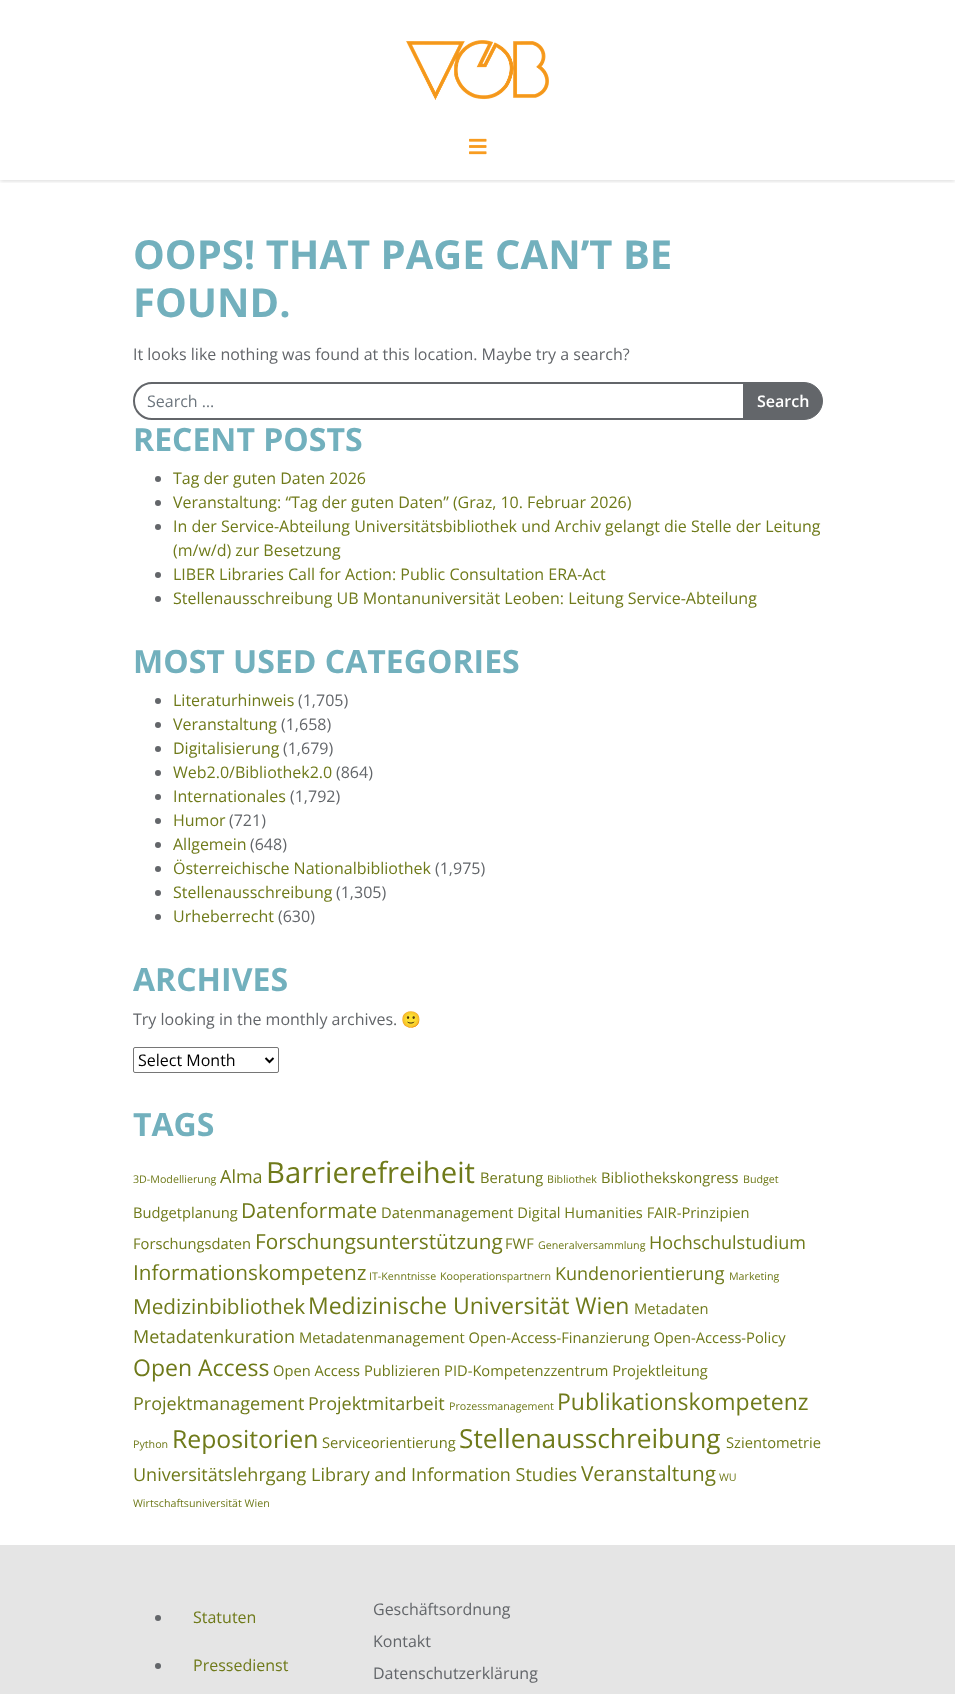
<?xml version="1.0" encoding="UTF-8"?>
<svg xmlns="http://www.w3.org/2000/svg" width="955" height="1694">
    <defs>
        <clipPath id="clip1"><rect x="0" y="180" width="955" height="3"/></clipPath>
        <filter id="blur1" x="-50%" y="-200%" width="200%" height="500%"><feGaussianBlur stdDeviation="2"/></filter>
    </defs>
    <rect width="100%" height="100%" fill="#FFFFFF"/>
    <g clip-path="url(#clip1)">
        <rect x="0" y="1" width="955" height="180" fill="#000000" fill-opacity="0.15" filter="url(#blur1)"/>
    </g>
    <image x="406" y="40" width="143" height="60" href="img_01.png"/>
    <image x="469" y="138" width="18" height="17" href="img_02.png"/>
    <text font-family="Open Sans" font-size="40" font-weight="700" fill="#72B0BD">
        <tspan x="133" y="269">OOPS! THAT PAGE CAN’T BE</tspan>
        <tspan x="133" y="317">FOUND.</tspan>
    </text>
    <text x="133" y="360" font-family="Open Sans" font-size="16" fill="#63666A">It looks like nothing was found at this location. Maybe try a search?</text>
    <path d="M 152 383 H 744 V 419 H 152 C 142 419 134 411 134 401 C 134 391 142 383 152 383 Z" fill="none" stroke="#63666A" stroke-width="2"/>
    <text x="147" y="407" font-family="Open Sans" font-size="16" fill="#6C757D">Search …</text>
    <path d="M 744.5 382.5 H 804 C 814 382.5 822.5 391 822.5 401 C 822.5 411 814 419.5 804 419.5 H 744.5 Z" fill="#63666A" stroke="#63666A"/>
    <text x="757" y="407" font-family="Open Sans" font-size="16" font-weight="600" fill="#FFFFFF">Search</text>
    <text x="133" y="451" font-family="Open Sans" font-size="32" font-weight="700" fill="#72B0BD">RECENT POSTS</text>
    <circle cx="158" cy="479" r="3" fill="#63666A"/>
    <text x="173" y="484" font-family="Open Sans" font-size="16" fill="#6F7A1A">Tag der guten Daten 2026</text>
    <circle cx="158" cy="503" r="3" fill="#63666A"/>
    <text x="173" y="508" font-family="Open Sans" font-size="16" fill="#6F7A1A">Veranstaltung: “Tag der guten Daten” (Graz, 10. Februar 2026)</text>
    <circle cx="158" cy="527" r="3" fill="#63666A"/>
    <text font-family="Open Sans" font-size="16" fill="#6F7A1A">
        <tspan x="173" y="532">In der Service-Abteilung Universitätsbibliothek und Archiv gelangt die Stelle der Leitung</tspan>
        <tspan x="173" y="556">(m/w/d) zur Besetzung</tspan>
    </text>
    <circle cx="158" cy="575" r="3" fill="#63666A"/>
    <text x="173" y="580" font-family="Open Sans" font-size="16" fill="#6F7A1A">LIBER Libraries Call for Action: Public Consultation ERA-Act</text>
    <circle cx="158" cy="599" r="3" fill="#63666A"/>
    <text x="173" y="604" font-family="Open Sans" font-size="16" fill="#6F7A1A">Stellenausschreibung UB Montanuniversität Leoben: Leitung Service-Abteilung</text>
    <text x="133" y="673" font-family="Open Sans" font-size="32" font-weight="700" fill="#72B0BD">MOST USED CATEGORIES</text>
    <circle cx="158" cy="701" r="3" fill="#63666A"/>
    <text x="173" y="706" font-family="Open Sans" font-size="16" fill="#6F7A1A">Literaturhinweis</text>
    <text x="298" y="706" font-family="Open Sans" font-size="16" fill="#63666A">(1,705)</text>
    <circle cx="158" cy="725" r="3" fill="#63666A"/>
    <text x="173" y="730" font-family="Open Sans" font-size="16" fill="#6F7A1A">Veranstaltung</text>
    <text x="281" y="730" font-family="Open Sans" font-size="16" fill="#63666A">(1,658)</text>
    <circle cx="158" cy="749" r="3" fill="#63666A"/>
    <text x="173" y="754" font-family="Open Sans" font-size="16" fill="#6F7A1A">Digitalisierung</text>
    <text x="283" y="754" font-family="Open Sans" font-size="16" fill="#63666A">(1,679)</text>
    <circle cx="158" cy="773" r="3" fill="#63666A"/>
    <text x="173" y="778" font-family="Open Sans" font-size="16" fill="#6F7A1A">Web2.0/Bibliothek2.0</text>
    <text x="336" y="778" font-family="Open Sans" font-size="16" fill="#63666A">(864)</text>
    <circle cx="158" cy="797" r="3" fill="#63666A"/>
    <text x="173" y="802" font-family="Open Sans" font-size="16" fill="#6F7A1A">Internationales</text>
    <text x="290" y="802" font-family="Open Sans" font-size="16" fill="#63666A">(1,792)</text>
    <circle cx="158" cy="821" r="3" fill="#63666A"/>
    <text x="173" y="826" font-family="Open Sans" font-size="16" fill="#6F7A1A">Humor</text>
    <text x="229" y="826" font-family="Open Sans" font-size="16" fill="#63666A">(721)</text>
    <circle cx="158" cy="845" r="3" fill="#63666A"/>
    <text x="173" y="850" font-family="Open Sans" font-size="16" fill="#6F7A1A">Allgemein</text>
    <text x="250" y="850" font-family="Open Sans" font-size="16" fill="#63666A">(648)</text>
    <circle cx="158" cy="869" r="3" fill="#63666A"/>
    <text x="173" y="874" font-family="Open Sans" font-size="16" fill="#6F7A1A">Österreichische Nationalbibliothek</text>
    <text x="435" y="874" font-family="Open Sans" font-size="16" fill="#63666A">(1,975)</text>
    <circle cx="158" cy="893" r="3" fill="#63666A"/>
    <text x="173" y="898" font-family="Open Sans" font-size="16" fill="#6F7A1A">Stellenausschreibung</text>
    <text x="336" y="898" font-family="Open Sans" font-size="16" fill="#63666A">(1,305)</text>
    <circle cx="158" cy="917" r="3" fill="#63666A"/>
    <text x="173" y="922" font-family="Open Sans" font-size="16" fill="#6F7A1A">Urheberrecht</text>
    <text x="278" y="922" font-family="Open Sans" font-size="16" fill="#63666A">(630)</text>
    <text x="133" y="991" font-family="Open Sans" font-size="32" font-weight="700" fill="#72B0BD">ARCHIVES</text>
    <text x="133" y="1025" font-family="Open Sans" font-size="16" fill="#63666A">Try looking in the monthly archives.</text>
    <text x="401" y="1025" font-family="Noto Color Emoji" font-size="16" fill="#63666A">🙂</text>
    <rect x="133.5" y="1047.5" width="145" height="25" rx="1.5" fill="none" stroke="#767676"/>
    <path d="M 265.5 1058 L 269.5 1062 L 273.5 1058" fill="none" stroke="#000000" stroke-width="2"/>
    <text x="138" y="1066" font-family="Open Sans" font-size="16" fill="#000000">Select Month</text>
    <text x="133" y="1136" font-family="Open Sans" font-size="32" font-weight="700" fill="#72B0BD">TAGS</text>
    <text x="133" y="1183" font-family="Open Sans" font-size="10.7" fill="#6F7A1A">3D-Modellierung</text>
    <text x="220" y="1183" font-family="Open Sans" font-size="18" fill="#6F7A1A">Alma</text>
    <text x="266" y="1183" font-family="Open Sans" font-size="29.25" fill="#6F7A1A">Barrierefreiheit</text>
    <text x="480" y="1183" font-family="Open Sans" font-size="14.7" fill="#6F7A1A">Beratung</text>
    <text x="547" y="1183" font-family="Open Sans" font-size="10.7" fill="#6F7A1A">Bibliothek</text>
    <text x="601" y="1183" font-family="Open Sans" font-size="14.7" fill="#6F7A1A">Bibliothekskongress</text>
    <text x="743" y="1183" font-family="Open Sans" font-size="10.7" fill="#6F7A1A">Budget</text>
    <text x="133" y="1218" font-family="Open Sans" font-size="14.7" fill="#6F7A1A">Budgetplanung</text>
    <text x="241" y="1218" font-family="Open Sans" font-size="20.75" fill="#6F7A1A">Datenformate</text>
    <text x="381" y="1218" font-family="Open Sans" font-size="14.7" fill="#6F7A1A">Datenmanagement Digital Humanities FAIR-Prinzipien</text>
    <text x="133" y="1249" font-family="Open Sans" font-size="14.7" fill="#6F7A1A">Forschungsdaten</text>
    <text x="255" y="1249" font-family="Open Sans" font-size="20.75" fill="#6F7A1A">Forschungsunterstützung</text>
    <text x="505" y="1249" font-family="Open Sans" font-size="14.7" fill="#6F7A1A">FWF</text>
    <text x="538" y="1249" font-family="Open Sans" font-size="10.7" fill="#6F7A1A">Generalversammlung</text>
    <text x="649" y="1249" font-family="Open Sans" font-size="18" fill="#6F7A1A">Hochschulstudium</text>
    <text x="133" y="1280" font-family="Open Sans" font-size="20.75" fill="#6F7A1A">Informationskompetenz</text>
    <text x="369" y="1280" font-family="Open Sans" font-size="10.7" fill="#6F7A1A">IT-Kenntnisse</text>
    <text x="440" y="1280" font-family="Open Sans" font-size="10.7" fill="#6F7A1A">Kooperationspartnern</text>
    <text x="555" y="1280" font-family="Open Sans" font-size="18" fill="#6F7A1A">Kundenorientierung</text>
    <text x="729" y="1280" font-family="Open Sans" font-size="10.7" fill="#6F7A1A">Marketing</text>
    <text x="133" y="1314" font-family="Open Sans" font-size="20.75" fill="#6F7A1A">Medizinbibliothek</text>
    <text x="308" y="1314" font-family="Open Sans" font-size="23" fill="#6F7A1A">Medizinische Universität Wien</text>
    <text x="634" y="1314" font-family="Open Sans" font-size="14.7" fill="#6F7A1A">Metadaten</text>
    <text x="133" y="1343" font-family="Open Sans" font-size="18" fill="#6F7A1A">Metadatenkuration</text>
    <text x="299" y="1343" font-family="Open Sans" font-size="14.7" fill="#6F7A1A">Metadatenmanagement Open-Access-Finanzierung Open-Access-Policy</text>
    <text x="133" y="1376" font-family="Open Sans" font-size="23" fill="#6F7A1A">Open Access</text>
    <text x="273" y="1376" font-family="Open Sans" font-size="14.7" fill="#6F7A1A">Open Access Publizieren PID-Kompetenzzentrum Projektleitung</text>
    <text x="133" y="1410" font-family="Open Sans" font-size="18" fill="#6F7A1A">Projektmanagement</text>
    <text x="308" y="1410" font-family="Open Sans" font-size="18" fill="#6F7A1A">Projektmitarbeit</text>
    <text x="449" y="1410" font-family="Open Sans" font-size="10.7" fill="#6F7A1A">Prozessmanagement</text>
    <text x="557" y="1410" font-family="Open Sans" font-size="23" fill="#6F7A1A">Publikationskompetenz</text>
    <text x="133" y="1448" font-family="Open Sans" font-size="10.7" fill="#6F7A1A">Python</text>
    <text x="172" y="1448" font-family="Open Sans" font-size="24.75" fill="#6F7A1A">Repositorien</text>
    <text x="322" y="1448" font-family="Open Sans" font-size="14.7" fill="#6F7A1A">Serviceorientierung</text>
    <text x="459" y="1448" font-family="Open Sans" font-size="26.25" fill="#6F7A1A">Stellenausschreibung</text>
    <text x="726" y="1448" font-family="Open Sans" font-size="14.7" fill="#6F7A1A">Szientometrie</text>
    <text x="133" y="1481" font-family="Open Sans" font-size="18" fill="#6F7A1A">Universitätslehrgang Library and Information Studies</text>
    <text x="581" y="1481" font-family="Open Sans" font-size="20.75" fill="#6F7A1A">Veranstaltung</text>
    <text x="719" y="1481" font-family="Open Sans" font-size="10.7" fill="#6F7A1A">WU</text>
    <text x="133" y="1507" font-family="Open Sans" font-size="10.7" fill="#6F7A1A">Wirtschaftsuniversität Wien</text>
    <rect x="0" y="1545" width="955" height="149" fill="#E5E5E5"/>
    <circle cx="158" cy="1618" r="3" fill="#63666A"/>
    <text x="193" y="1623" font-family="Open Sans" font-size="16" fill="#6F7A1A">Statuten</text>
    <circle cx="158" cy="1666" r="3" fill="#63666A"/>
    <text x="193" y="1671" font-family="Open Sans" font-size="16" fill="#6F7A1A">Pressedienst</text>
    <text x="373" y="1615" font-family="Open Sans" font-size="16" fill="#63666A">Geschäftsordnung</text>
    <text x="373" y="1647" font-family="Open Sans" font-size="16" fill="#63666A">Kontakt</text>
    <text x="373" y="1679" font-family="Open Sans" font-size="16" fill="#63666A">Datenschutzerklärung</text>
</svg>
